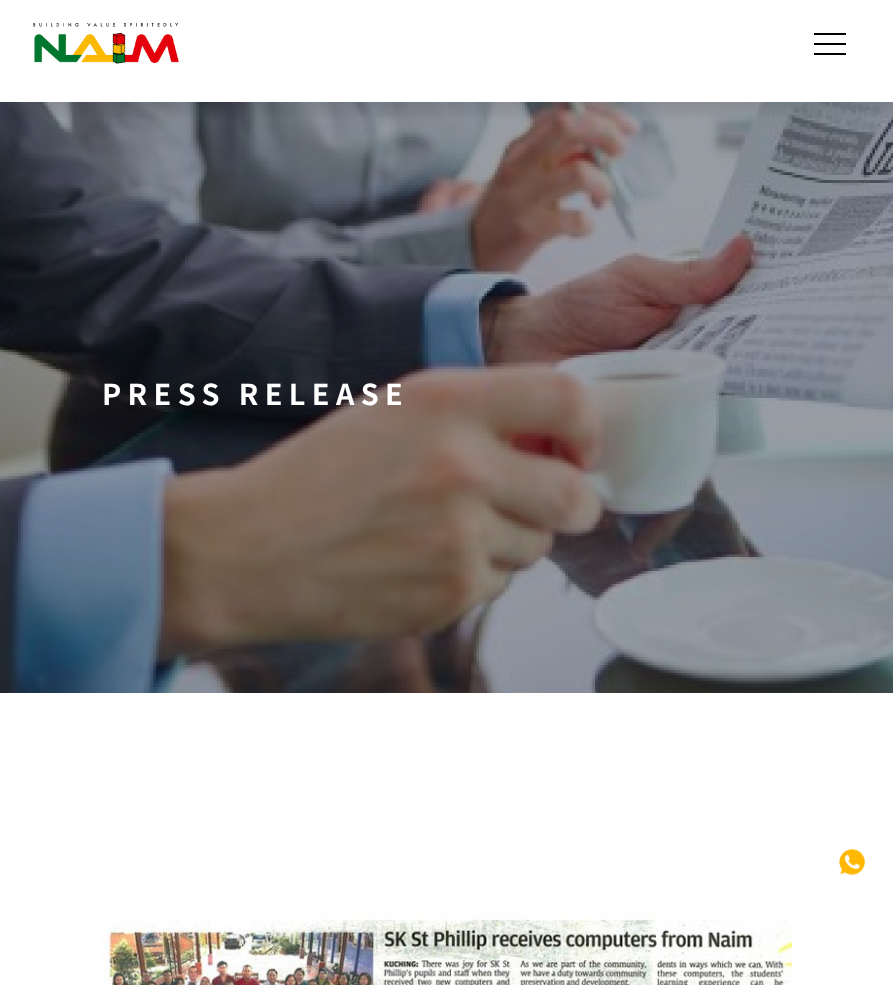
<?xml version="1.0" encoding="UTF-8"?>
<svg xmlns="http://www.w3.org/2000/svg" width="893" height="985">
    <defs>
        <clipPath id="clip1"><rect x="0" y="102" width="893" height="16"/></clipPath>
        <filter id="blur1" x="-50%" y="-200%" width="200%" height="500%"><feGaussianBlur stdDeviation="7.5"/></filter>
    </defs>
    <rect width="100%" height="100%" fill="#FFFFFF"/>
    <image x="0" y="102" width="893" height="591" href="img_02.png"/>
    <g clip-path="url(#clip1)">
        <rect x="0" y="10" width="893" height="102" fill="#191919" fill-opacity="0.1" filter="url(#blur1)"/>
    </g>
    <image x="33" y="22" width="146" height="42" href="img_01.png"/>
    <rect x="814" y="43" width="32" height="2" fill="#000000"/>
    <rect x="814" y="33" width="32" height="2" fill="#000000"/>
    <rect x="814" y="53" width="32" height="2" fill="#000000"/>
    <text x="102" y="405" font-family="Noto Sans JP" font-size="28.75" font-weight="700" letter-spacing="6.4" fill="#FFFFFF">PRESS RELEASE</text>
    <image x="102" y="913" width="690" height="72" href="img_03.png"/>
    <image x="839" y="849" width="26" height="27" href="img_04.png"/>
</svg>
